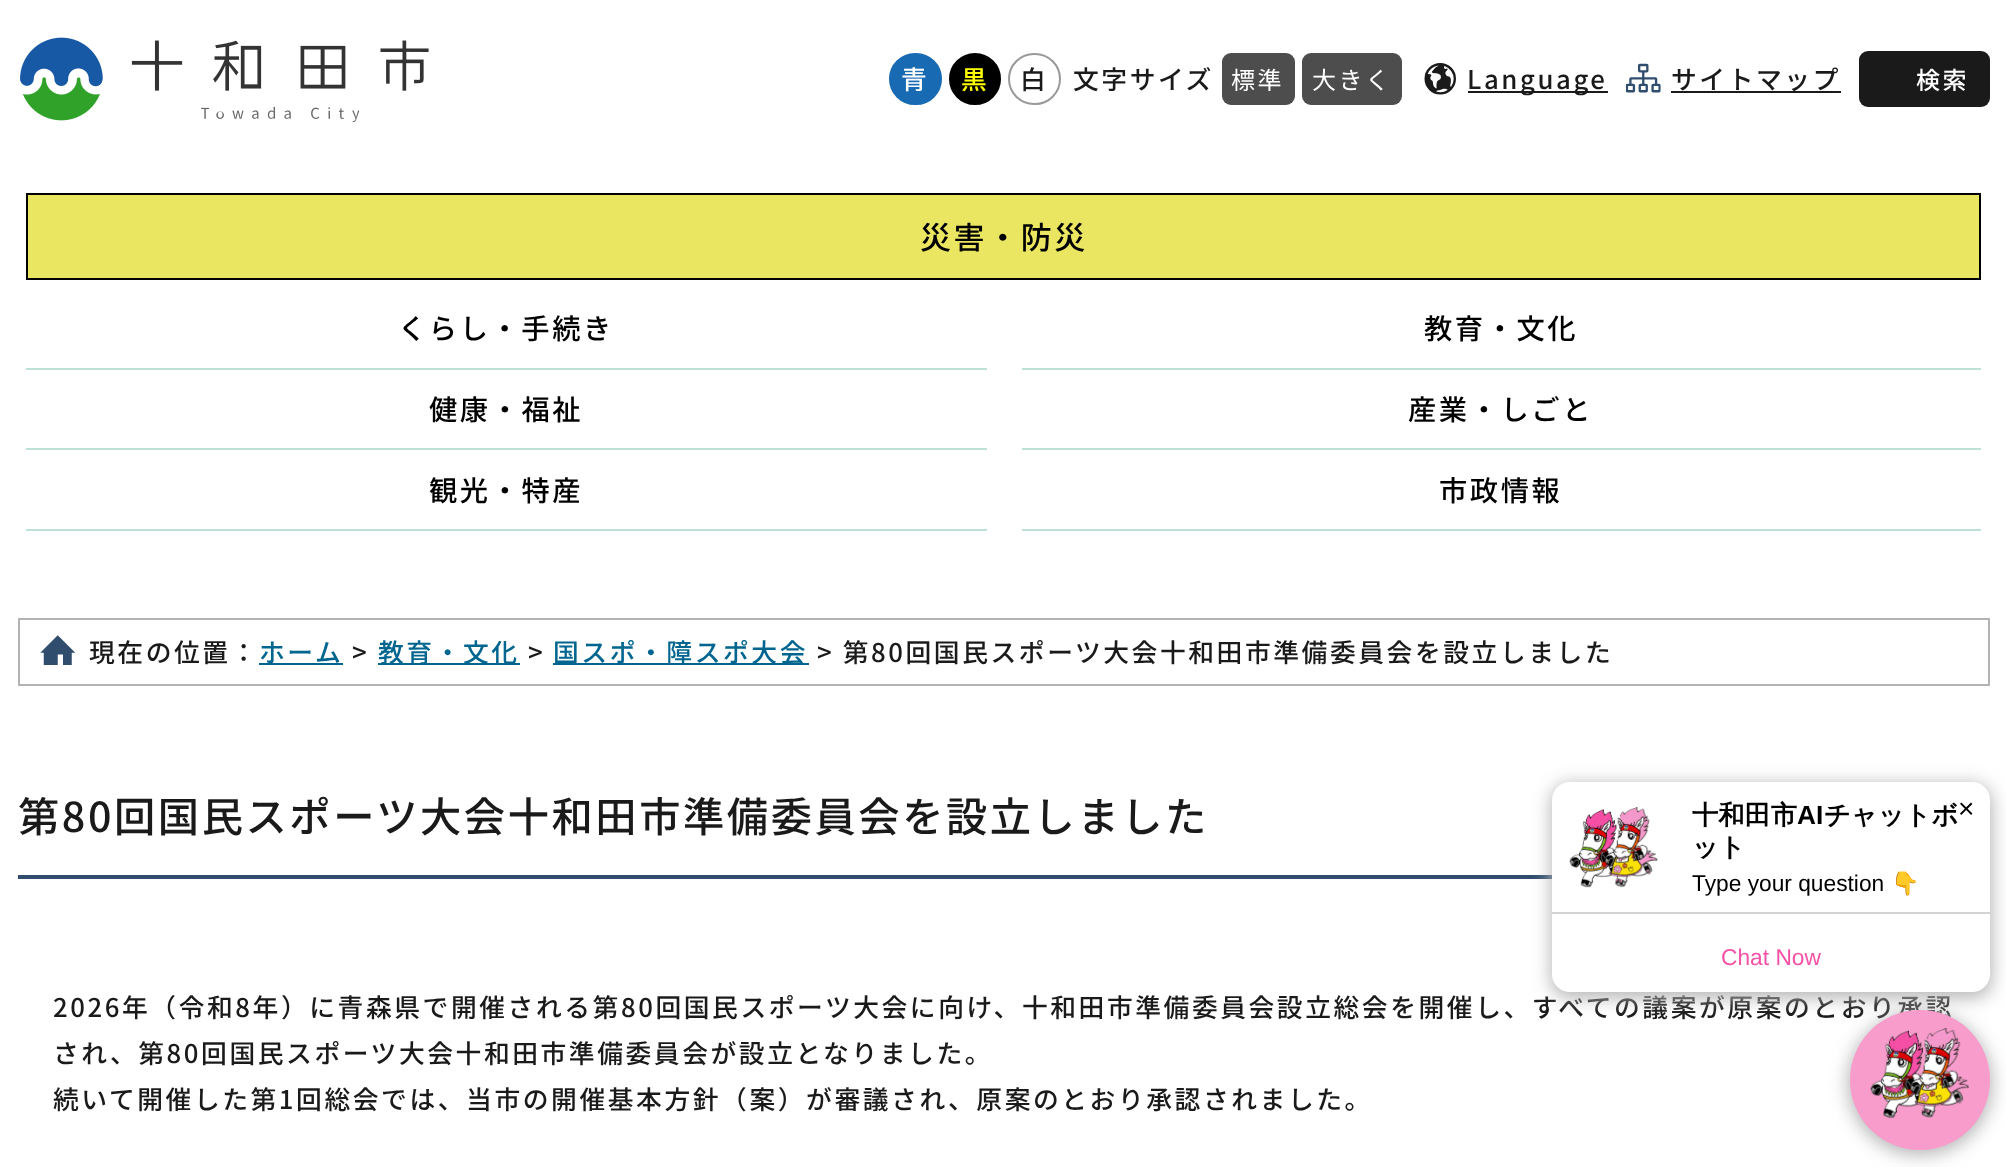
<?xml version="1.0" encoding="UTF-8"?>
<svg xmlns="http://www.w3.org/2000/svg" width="2006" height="1167">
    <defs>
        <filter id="blur1" x="-50%" y="-200%" width="200%" height="500%"><feGaussianBlur stdDeviation="9"/></filter>
        <clipPath id="clip1"><rect x="1850" y="1010" width="140" height="140" rx="70"/></clipPath>
    </defs>
    <rect width="100%" height="100%" fill="#FFFFFF"/>
    <image x="20" y="37" width="409" height="86" href="img_01.png"/>
    <rect x="890" y="54" width="51" height="50" rx="25" fill="#186AB3" stroke="#186AB3" stroke-width="2"/>
    <text x="901" y="89" font-family="Noto Sans JP" font-size="25.75" font-weight="500" letter-spacing="2.58" fill="#FFFFFF">青</text>
    <circle cx="975" cy="79" r="25" fill="#000000" stroke="#000000" stroke-width="2"/>
    <text x="961" y="89" font-family="Noto Sans JP" font-size="25.75" font-weight="500" letter-spacing="2.58" fill="#FFFF00">黒</text>
    <rect x="1009" y="54" width="51" height="50" rx="25" fill="none" stroke="#999999" stroke-width="2"/>
    <text x="1020" y="89" font-family="Noto Sans JP" font-size="25.75" font-weight="500" letter-spacing="2.58" fill="#1A1A1A">白</text>
    <text x="1073" y="89" font-family="Noto Sans JP" font-size="25.75" font-weight="500" letter-spacing="2.58" fill="#1A1A1A">文字サイズ</text>
    <rect x="1222" y="53" width="73" height="52" rx="9" fill="#4D4D4D"/>
    <text x="1231" y="89" font-family="Noto Sans JP" font-size="24" letter-spacing="2.58" fill="#FFFFFF">標準</text>
    <rect x="1302" y="53" width="100" height="52" rx="9" fill="#4D4D4D"/>
    <text x="1312" y="89" font-family="Noto Sans JP" font-size="24" letter-spacing="2.58" fill="#FFFFFF">大きく</text>
    <image x="1424" y="63" width="32" height="32" href="img_02.png"/>
    <rect x="1468" y="91" width="140" height="2" fill="#1A1A1A"/>
    <text x="1467" y="89" font-family="Noto Sans JP" font-size="25.75" font-weight="500" letter-spacing="2.58" fill="#1A1A1A">Language</text>
    <image x="1626" y="63" width="35" height="30" href="img_03.png"/>
    <rect x="1671" y="91" width="170" height="2" fill="#1A1A1A"/>
    <text x="1671" y="89" font-family="Noto Sans JP" font-size="25.75" font-weight="500" letter-spacing="2.58" fill="#1A1A1A">サイトマップ</text>
    <rect x="1859" y="51" width="131" height="56" rx="9" fill="#1A1A1A"/>
    <text x="1916" y="89" font-family="Noto Sans JP" font-size="24" font-weight="500" letter-spacing="2.58" fill="#FFFFFF">検索</text>
    <rect x="27" y="194" width="1953" height="85" fill="#EBE661" stroke="#000000" stroke-width="2"/>
    <text x="920" y="249" font-family="Noto Sans JP" font-size="31" font-weight="500" letter-spacing="2.58" fill="#000000">災害・防災</text>
    <rect x="26" y="368" width="961" height="2" fill="#BDE1D6"/>
    <text x="398" y="339" font-family="Noto Sans JP" font-size="28.25" font-weight="500" letter-spacing="2.58" fill="#000000">くらし・手続き</text>
    <rect x="1022" y="368" width="959" height="2" fill="#BDE1D6"/>
    <text x="1424" y="339" font-family="Noto Sans JP" font-size="28.25" font-weight="500" letter-spacing="2.58" fill="#000000">教育・文化</text>
    <rect x="26" y="448" width="961" height="2" fill="#BDE1D6"/>
    <text x="429" y="420" font-family="Noto Sans JP" font-size="28.25" font-weight="500" letter-spacing="2.58" fill="#000000">健康・福祉</text>
    <rect x="1022" y="448" width="959" height="2" fill="#BDE1D6"/>
    <text x="1408" y="420" font-family="Noto Sans JP" font-size="28.25" font-weight="500" letter-spacing="2.58" fill="#000000">産業・しごと</text>
    <rect x="26" y="529" width="961" height="2" fill="#BDE1D6"/>
    <text x="429" y="501" font-family="Noto Sans JP" font-size="28.25" font-weight="500" letter-spacing="2.58" fill="#000000">観光・特産</text>
    <rect x="1022" y="529" width="959" height="2" fill="#BDE1D6"/>
    <text x="1439" y="501" font-family="Noto Sans JP" font-size="28.25" font-weight="500" letter-spacing="2.58" fill="#000000">市政情報</text>
    <rect x="19" y="619" width="1970" height="66" fill="none" stroke="#B3B3B3" stroke-width="2"/>
    <image x="40" y="635" width="35" height="30" href="img_04.png"/>
    <text x="89" y="662" font-family="Noto Sans JP" font-size="25.75" font-weight="500" letter-spacing="2.58" fill="#1A1A1A">現在の位置：</text>
    <text x="259" y="662" font-family="Noto Sans JP" font-size="25.75" font-weight="500" letter-spacing="2.58" fill="#00658F">ホーム</text>
    <rect x="259" y="663" width="84" height="2" fill="#00658F"/>
    <text x="352" y="662" font-family="Noto Sans JP" font-size="25.75" font-weight="500" letter-spacing="2.58" fill="#1A1A1A">&gt;</text>
    <rect x="378" y="663" width="142" height="2" fill="#00658F"/>
    <text x="378" y="662" font-family="Noto Sans JP" font-size="25.75" font-weight="500" letter-spacing="2.58" fill="#00658F">教育・文化</text>
    <text x="528" y="662" font-family="Noto Sans JP" font-size="25.75" font-weight="500" letter-spacing="2.58" fill="#1A1A1A">&gt;</text>
    <rect x="553" y="663" width="256" height="2" fill="#00658F"/>
    <text x="553" y="662" font-family="Noto Sans JP" font-size="25.75" font-weight="500" letter-spacing="2.58" fill="#00658F">国スポ・障スポ大会</text>
    <text x="817" y="662" font-family="Noto Sans JP" font-size="25.75" font-weight="500" letter-spacing="2.58" fill="#1A1A1A">&gt; 第80回国民スポーツ大会十和田市準備委員会を設立しました</text>
    <rect x="18" y="875" width="1534" height="4" fill="#304D6D"/>
    <text x="18" y="832" font-family="Noto Sans JP" font-size="41.25" font-weight="500" letter-spacing="2.58" fill="#1A1A1A">第80回国民スポーツ大会十和田市準備委員会を設立しました</text>
    <text font-family="Noto Sans JP" font-size="25.75" font-weight="500" letter-spacing="2.58" fill="#1A1A1A">
        <tspan x="53" y="1017">2026年（令和8年）に青森県で開催される第80回国民スポーツ大会に向け、十和田市準備委員会設立総会を開催し、すべての議案が原案のとおり承認</tspan>
        <tspan x="53" y="1063">され、第80回国民スポーツ大会十和田市準備委員会が設立となりました。</tspan>
        <tspan x="53" y="1109">続いて開催した第1回総会では、当市の開催基本方針（案）が審議され、原案のとおり承認されました。</tspan>
    </text>
    <rect x="1551" y="784" width="441" height="214" rx="19" fill="#B5B5B5" filter="url(#blur1)"/>
    <rect x="1552" y="782" width="438" height="210" rx="18" fill="#FFFFFF"/>
    <rect x="1552" y="912" width="438" height="2" fill="#D3D3D3"/>
    <image x="1569" y="807" width="89" height="81" href="img_05.png"/>
    <text x="1692" y="824" font-family="WenQuanYi Zen Hei" font-size="26.25" font-weight="700" fill="#000000">十和田市</text>
    <text x="1797" y="824" font-family="Liberation Sans" font-size="26.25" font-weight="700" fill="#000000">AI</text>
    <text x="1824" y="824" font-family="WenQuanYi Zen Hei" font-size="26.25" font-weight="700" fill="#000000">チャットボ</text>
    <text x="1692" y="856" font-family="WenQuanYi Zen Hei" font-size="26.25" font-weight="700" fill="#000000">ット</text>
    <text x="1692" y="891" font-family="Liberation Sans" font-size="22.75" fill="#000000">Type your question</text>
    <text x="1891" y="891" font-family="Noto Color Emoji" font-size="22.75" fill="#000000">👇</text>
    <text x="1958" y="818" font-family="Liberation Sans" font-size="28" fill="#000000">×</text>
    <text x="1721" y="965" font-family="Liberation Sans" font-size="22.75" fill="#F551A6">Chat Now</text>
    <rect x="1848" y="1012" width="144" height="143" rx="71.5" fill="#B5B5B5" filter="url(#blur1)"/>
    <circle cx="1920" cy="1080" r="70" fill="#F79CCB"/>
    <g clip-path="url(#clip1)">
        <rect x="1871" y="1024" width="98" height="98" fill="#F79CCB"/>
    </g>
    <image x="1870" y="1028" width="99" height="90" href="img_06.png"/>
</svg>
